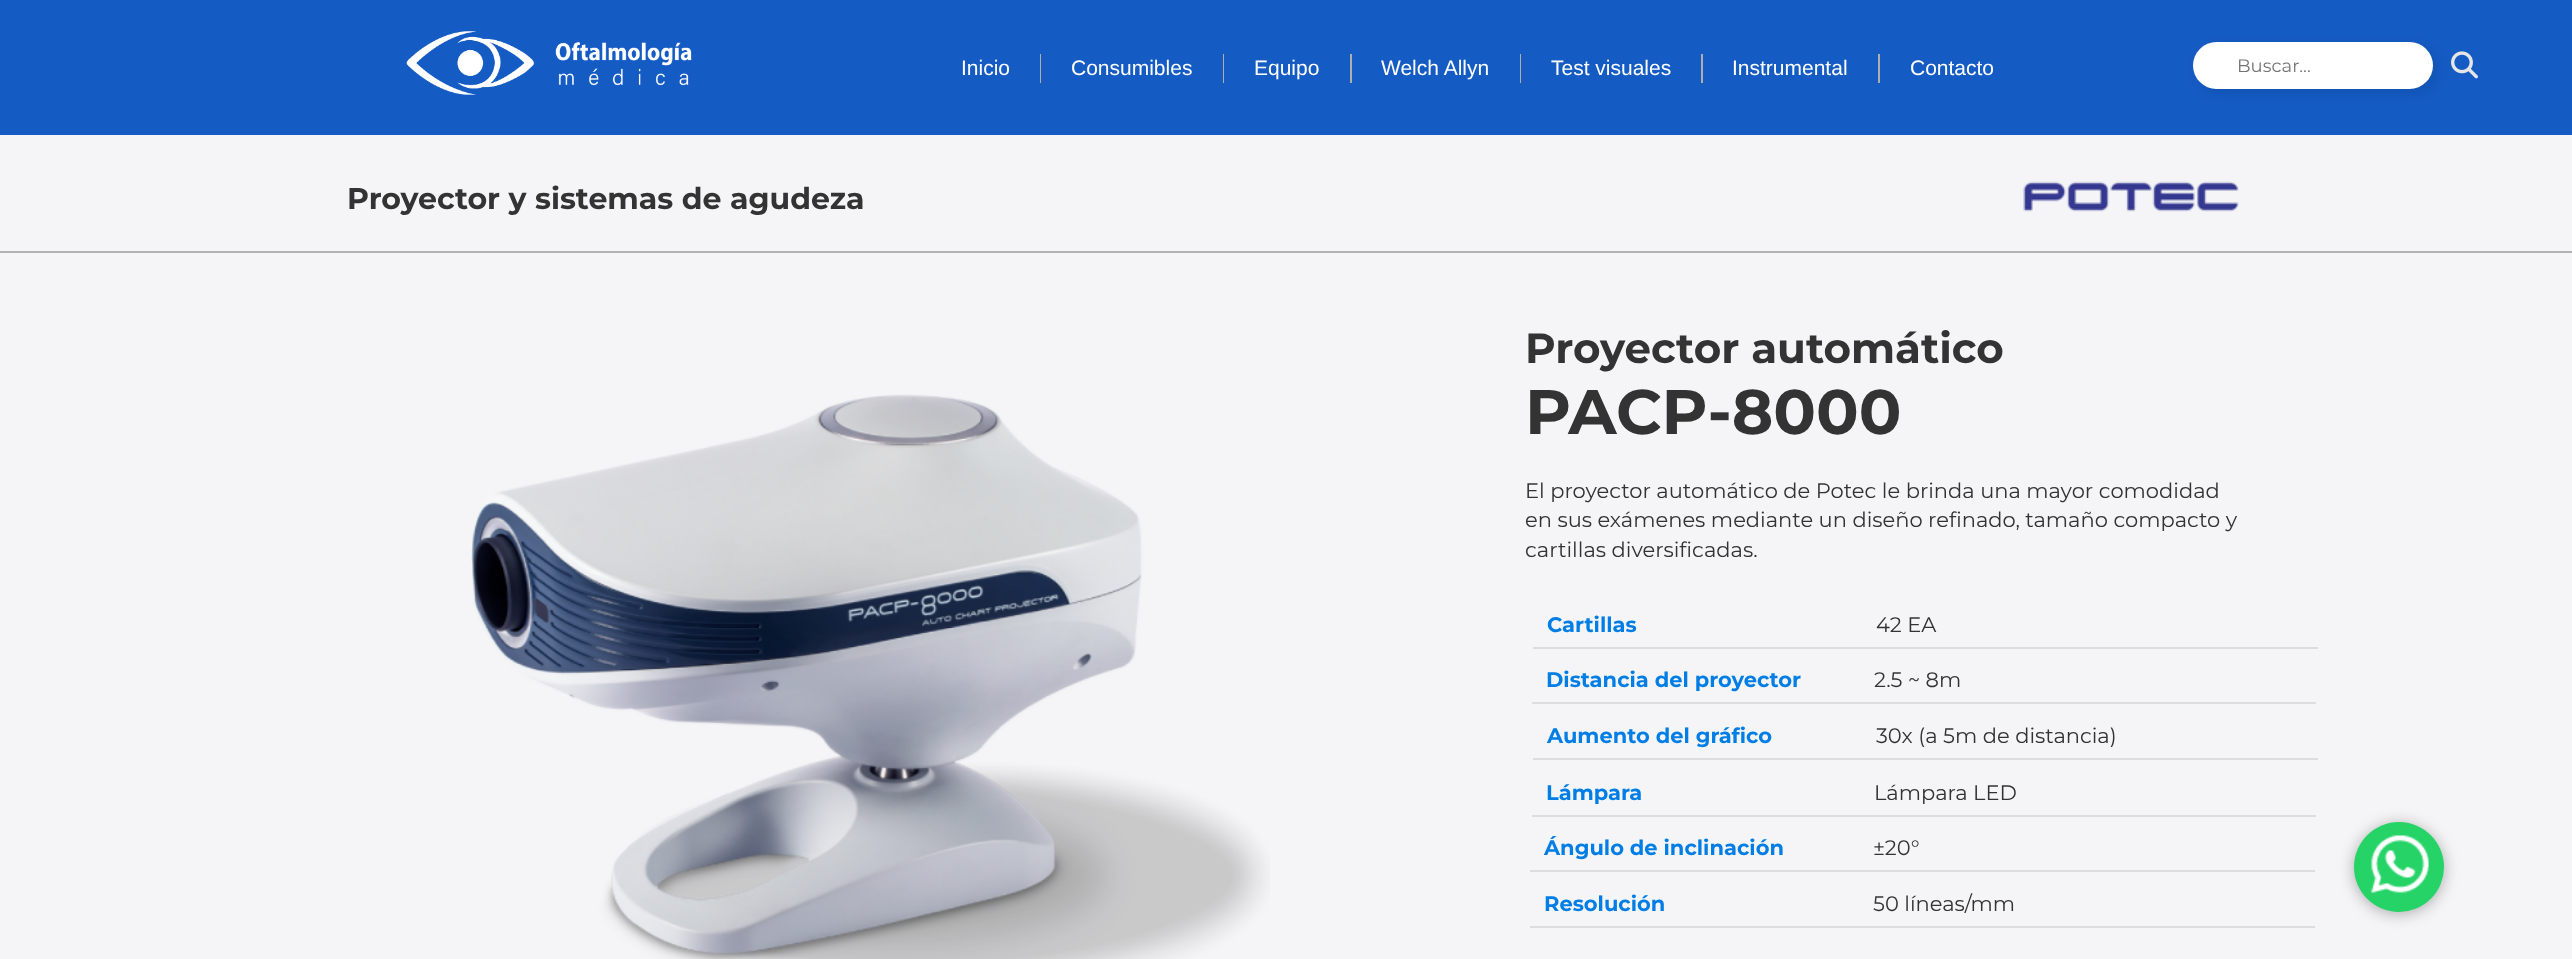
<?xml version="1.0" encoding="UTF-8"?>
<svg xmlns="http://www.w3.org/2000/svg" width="2572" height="959">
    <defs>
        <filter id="blur1" x="-50%" y="-200%" width="200%" height="500%"><feGaussianBlur stdDeviation="7.5"/></filter>
    </defs>
    <rect width="100%" height="100%" fill="#F5F5F7"/>
    <rect x="0" y="0" width="2572" height="135" fill="#145BC4"/>
    <image x="406" y="31" width="286" height="64" href="img_01.png"/>
    <rect x="1040" y="54" width="1" height="29" fill="#AEAEAE"/>
    <text x="961" y="75" font-family="Liberation Sans" font-size="21" fill="#FFFFFF">Inicio</text>
    <rect x="1223" y="54" width="1" height="29" fill="#AEAEAE"/>
    <text x="1071" y="75" font-family="Liberation Sans" font-size="21" fill="#FFFFFF">Consumibles</text>
    <rect x="1350" y="54" width="2" height="29" fill="#AEAEAE"/>
    <text x="1254" y="75" font-family="Liberation Sans" font-size="21" fill="#FFFFFF">Equipo</text>
    <rect x="1520" y="54" width="1" height="29" fill="#AEAEAE"/>
    <text x="1381" y="75" font-family="Liberation Sans" font-size="21" fill="#FFFFFF">Welch Allyn</text>
    <rect x="1701" y="54" width="2" height="29" fill="#AEAEAE"/>
    <text x="1551" y="75" font-family="Liberation Sans" font-size="21" fill="#FFFFFF">Test visuales</text>
    <rect x="1878" y="54" width="2" height="29" fill="#AEAEAE"/>
    <text x="1732" y="75" font-family="Liberation Sans" font-size="21" fill="#FFFFFF">Instrumental</text>
    <text x="1910" y="75" font-family="Liberation Sans" font-size="21" fill="#FFFFFF">Contacto</text>
    <rect x="2198" y="47" width="240" height="46" rx="23" fill="#000000" fill-opacity="0.1" filter="url(#blur1)"/>
    <rect x="2193" y="42" width="240" height="47" rx="23.5" fill="#FFFFFF"/>
    <text x="2237" y="72" font-family="Montserrat" font-size="18" fill="#757575">Buscar...</text>
    <image x="2451" y="51" width="27" height="28" href="img_02.png"/>
    <text x="347" y="209" font-family="Montserrat" font-size="30" font-weight="700" fill="#333333">Proyector y sistemas de agudeza</text>
    <image x="2023" y="181" width="216" height="31" href="img_03.png"/>
    <rect x="0" y="251" width="2572" height="2" fill="#B2B2B2"/>
    <image x="471" y="394" width="799" height="565" href="img_04.png"/>
    <text x="1525" y="363" font-family="Montserrat" font-size="42" font-weight="700" fill="#333333">Proyector automático</text>
    <text x="1525" y="434" font-family="Montserrat" font-size="63" font-weight="700" fill="#333333">PACP-8000</text>
    <text font-family="Montserrat" font-size="21" fill="#333333">
        <tspan x="1525" y="498">El proyector automático de Potec le brinda una mayor comodidad</tspan>
        <tspan x="1525" y="527">en sus exámenes mediante un diseño refinado, tamaño compacto y</tspan>
        <tspan x="1525" y="557">cartillas diversificadas.</tspan>
    </text>
    <text x="1547" y="632" font-family="Montserrat" font-size="21" font-weight="700" fill="#007EE5">Cartillas</text>
    <text x="1876" y="632" font-family="Montserrat" font-size="21" fill="#333333">42 EA</text>
    <rect x="1533" y="647" width="785" height="2" fill="#DDDDDE"/>
    <text x="1546" y="687" font-family="Montserrat" font-size="21" font-weight="700" fill="#007EE5">Distancia del proyector</text>
    <text x="1874" y="687" font-family="Montserrat" font-size="21" fill="#333333">2.5 ~ 8m</text>
    <rect x="1532" y="702" width="784" height="2" fill="#DDDDDE"/>
    <text x="1547" y="743" font-family="Montserrat" font-size="21" font-weight="700" fill="#007EE5">Aumento del gráfico</text>
    <text x="1876" y="743" font-family="Montserrat" font-size="21" fill="#333333">30x (a 5m de distancia)</text>
    <rect x="1533" y="758" width="785" height="2" fill="#DDDDDE"/>
    <text x="1546" y="800" font-family="Montserrat" font-size="21" font-weight="700" fill="#007EE5">Lámpara</text>
    <text x="1874" y="800" font-family="Montserrat" font-size="21" fill="#333333">Lámpara LED</text>
    <rect x="1532" y="815" width="784" height="2" fill="#DDDDDE"/>
    <text x="1544" y="855" font-family="Montserrat" font-size="21" font-weight="700" fill="#007EE5">Ángulo de inclinación</text>
    <text x="1873" y="855" font-family="Montserrat" font-size="21" fill="#333333">±20°</text>
    <rect x="1530" y="870" width="785" height="2" fill="#DDDDDE"/>
    <text x="1544" y="911" font-family="Montserrat" font-size="21" font-weight="700" fill="#007EE5">Resolución</text>
    <text x="1873" y="911" font-family="Montserrat" font-size="21" fill="#333333">50 líneas/mm</text>
    <rect x="1530" y="926" width="785" height="2" fill="#DDDDDE"/>
    <rect x="2354" y="824" width="90" height="90" rx="45" fill="#000000" fill-opacity="0.3" filter="url(#blur1)"/>
    <circle cx="2399" cy="867" r="45" fill="#25D366"/>
    <image x="2371" y="835" width="58" height="58" href="img_05.png"/>
</svg>
